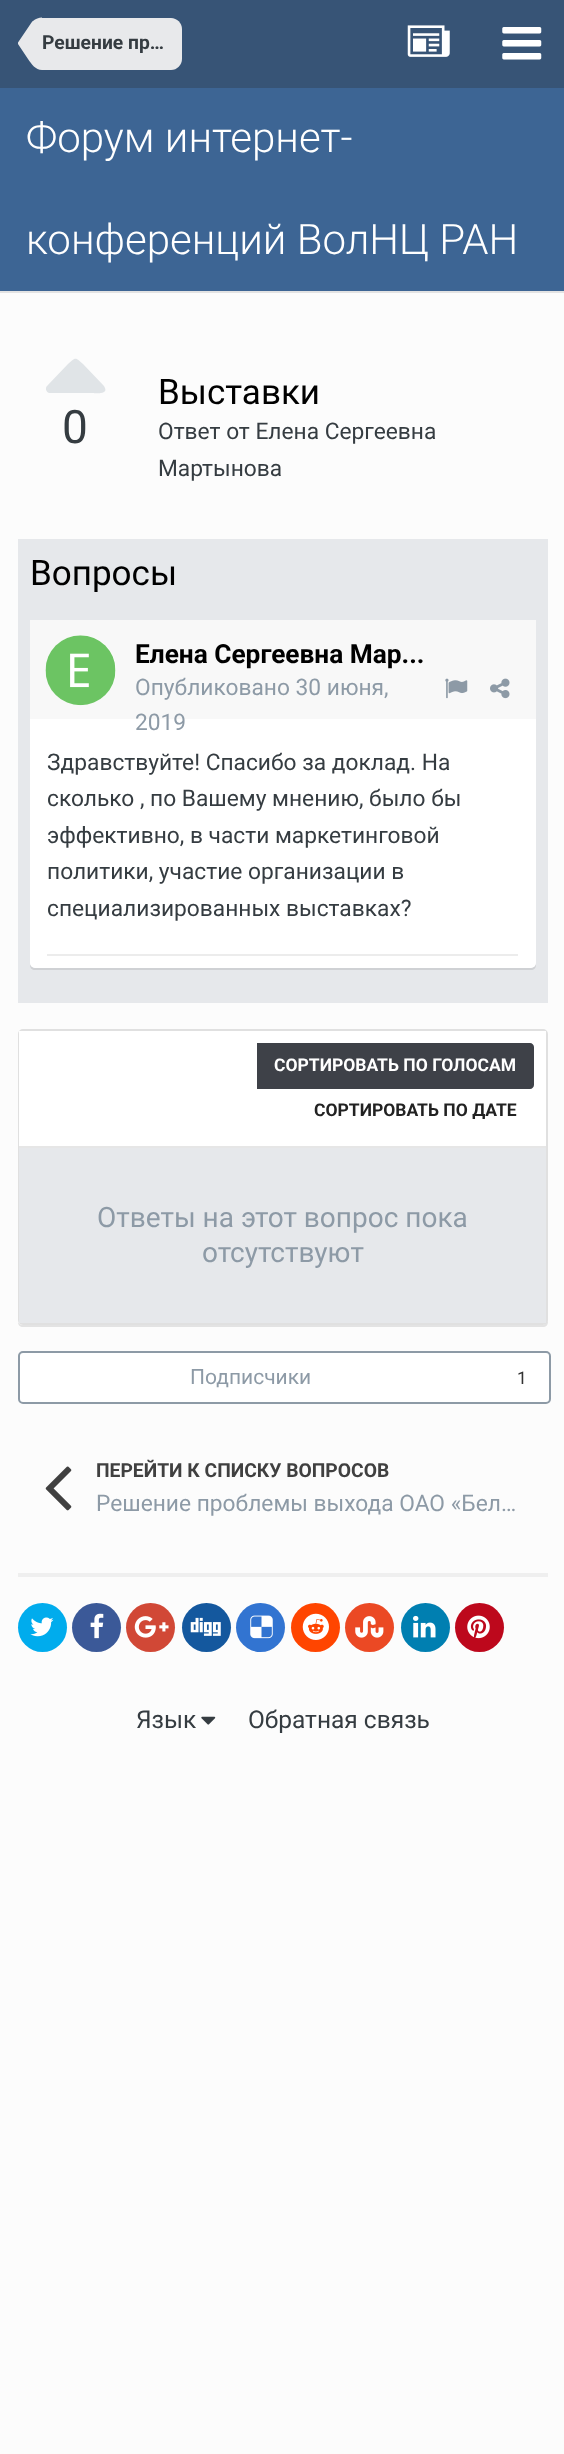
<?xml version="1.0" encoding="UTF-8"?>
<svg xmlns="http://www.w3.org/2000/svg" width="564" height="2454">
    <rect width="100%" height="100%" fill="#FCFCFC"/>
    <rect x="0" y="291" width="564" height="2" fill="#E3E3E3"/>
    <rect x="0" y="0" width="564" height="88" fill="#375476"/>
    <path d="M 42 18 H 171 C 177 18 182 23 182 29 V 59 C 182 65 177 70 171 70 H 42 Z" fill="#E8E9EB"/>
    <path d="M 18 44 H 42 V 70 C 35.5 70 31.5 64 28 59 Z M 42 17.5 V 44 H 18 V 42.5 L 30.5 24 C 32 22 31.5 22 33 21 C 35.5 19 39 17.5 42 17.5 Z" fill="#E8E9EB"/>
    <text x="42" y="49" font-family="Roboto" font-size="19.25" font-weight="700" fill="#353C41">Решение пр…</text>
    <image x="407" y="25" width="43" height="32" href="img_01.png"/>
    <image x="502" y="27" width="40" height="33" href="img_02.png"/>
    <rect x="0" y="88" width="564" height="203" fill="#3D6594"/>
    <text x="26" y="152" font-family="Roboto" font-size="42" font-weight="300" fill="#FFFFFF">Форум интернет-</text>
    <text x="26" y="254" font-family="Roboto" font-size="42" font-weight="300" fill="#FFFFFF">конференций ВолНЦ РАН</text>
    <path d="M 104 386 L 105 388 C 108 395 94 393 93 393 H 49 C 46 392 45 388 47 386 L 68 364 C 76 357 75 357 83 364 Z" fill="#E0E4E7"/>
    <text x="62" y="443" font-family="Roboto" font-size="46" fill="#353C41">0</text>
    <text x="158" y="404" font-family="Roboto" font-size="35" fill="#000000">Выставки</text>
    <text font-family="Roboto" font-size="22.75" fill="#353C41">
        <tspan x="158" y="439">Ответ от Елена Сергеевна</tspan>
        <tspan x="158" y="476">Мартынова</tspan>
    </text>
    <rect x="18" y="539" width="530" height="464" fill="#E6E8EB"/>
    <text x="30" y="585" font-family="Roboto" font-size="35" fill="#000000">Вопросы</text>
    <path d="M 30 964 V 965 C 30 968 32 970 35 970 H 531 C 534 970 536 968 536 965 V 626 L 535 624 L 536 962 C 536 965 533 968 530 968 H 35 C 33 968 31 966 30 964 Z" fill="#CFD1D4"/>
    <rect x="30" y="620" width="506" height="348" rx="5" fill="#FFFFFF"/>
    <rect x="30" y="620" width="506" height="99" fill="#F8F8F8"/>
    <circle cx="81" cy="670" r="35" fill="#FFFFFF"/>
    <image x="45" y="635" width="71" height="71" href="img_03.png"/>
    <text x="135" y="663" font-family="Roboto" font-size="26.25" font-weight="700" fill="#000000">Елена Сергеевна Мар...</text>
    <text font-family="Roboto" font-size="22.75" fill="#8D9AA6">
        <tspan x="135" y="695">Опубликовано 30 июня,</tspan>
        <tspan x="135" y="730">2019</tspan>
    </text>
    <image x="445" y="678" width="23" height="21" href="img_04.png"/>
    <image x="490" y="678" width="20" height="21" href="img_05.png"/>
    <text font-family="Roboto" font-size="22.75" fill="#353C41">
        <tspan x="47" y="770">Здравствуйте! Спасибо за доклад. На</tspan>
        <tspan x="47" y="806">сколько , по Вашему мнению, было бы</tspan>
        <tspan x="47" y="843">эффективно, в части маркетинговой</tspan>
        <tspan x="47" y="879">политики, участие организации в</tspan>
        <tspan x="47" y="916">специализированных выставках?</tspan>
    </text>
    <rect x="47" y="954" width="471" height="2" fill="#ECECEC"/>
    <path d="M 18 1322 C 18 1325 20 1327 23 1327 H 543 C 546 1327 548 1325 548 1322 V 1034 V 1320 C 548 1322 545 1325 542 1325 H 23 C 21 1325 19 1324 18 1322 Z" fill="#E3E3E3"/>
    <rect x="19" y="1030" width="528" height="294" rx="4" fill="none" stroke="#E0E0E0" stroke-width="2"/>
    <rect x="19" y="1031" width="527" height="115" fill="#FFFFFF"/>
    <rect x="19" y="1146" width="527" height="2" fill="#E6E6E6"/>
    <path d="M 257 1043 H 530 C 532 1043 534 1045 534 1047 V 1085 C 534 1087 532 1089 530 1089 H 257 Z" fill="#3E4148"/>
    <text x="274" y="1071" font-family="Roboto" font-size="17.5" font-weight="700" fill="#FFFFFF">СОРТИРОВАТЬ ПО ГОЛОСАМ</text>
    <text x="314" y="1116" font-family="Roboto" font-size="17.5" font-weight="700" fill="#222222">СОРТИРОВАТЬ ПО ДАТЕ</text>
    <rect x="19" y="1148" width="527" height="175" fill="#E6E8EB"/>
    <text x="97" y="1227" font-family="Roboto" font-size="28" fill="#8D9AA6">Ответы на этот вопрос пока</text>
    <text x="202" y="1262" font-family="Roboto" font-size="28" fill="#8D9AA6">отсутствуют</text>
    <rect x="19" y="1352" width="531" height="51" rx="4" fill="#FFFFFF" stroke="#8D9AA6" stroke-width="2"/>
    <text x="190" y="1384" font-family="Roboto" font-size="21" fill="#8D9AA6">Подписчики</text>
    <text x="517" y="1384" font-family="Roboto" font-size="17.5" fill="#333333">1</text>
    <image x="45" y="1466" width="27" height="45" href="img_06.png"/>
    <text x="96" y="1477" font-family="Roboto" font-size="19.25" font-weight="700" fill="#404040">ПЕРЕЙТИ К СПИСКУ ВОПРОСОВ</text>
    <text x="96" y="1511" font-family="Roboto" font-size="22.75" fill="#8D9AA6">Решение проблемы выхода ОАО «Бел…</text>
    <rect x="18" y="1573" width="530" height="4" fill="#EFEFEF"/>
    <circle cx="42.5" cy="1627.5" r="24.5" fill="#00ACED"/>
    <image x="30" y="1617" width="24" height="20" href="img_07.png"/>
    <circle cx="96.5" cy="1627.5" r="24.5" fill="#3B5998"/>
    <image x="90" y="1613" width="14" height="26" href="img_08.png"/>
    <circle cx="150.5" cy="1627.5" r="24.5" fill="#D14836"/>
    <image x="134" y="1616" width="35" height="22" href="img_09.png"/>
    <circle cx="206.5" cy="1627.5" r="24.5" fill="#14589E"/>
    <image x="190" y="1617" width="31" height="19" href="img_10.png"/>
    <circle cx="260.5" cy="1627.5" r="24.5" fill="#3274D1"/>
    <image x="250" y="1615" width="23" height="24" href="img_11.png"/>
    <circle cx="315.5" cy="1627.5" r="24.5" fill="#FF4500"/>
    <image x="302" y="1613" width="27" height="27" href="img_12.png"/>
    <circle cx="369.5" cy="1627.5" r="24.5" fill="#EB4924"/>
    <image x="355" y="1616" width="29" height="22" href="img_13.png"/>
    <circle cx="425.5" cy="1627.5" r="24.5" fill="#007FB1"/>
    <image x="413" y="1615" width="23" height="23" href="img_14.png"/>
    <circle cx="479.5" cy="1627.5" r="24.5" fill="#BD081C"/>
    <image x="467" y="1615" width="23" height="24" href="img_15.png"/>
    <text x="136" y="1728" font-family="Roboto" font-size="24.5" fill="#353C41">Язык</text>
    <image x="201" y="1716" width="15" height="9" href="img_16.png"/>
    <text x="248" y="1728" font-family="Roboto" font-size="24.5" fill="#353C41">Обратная связь</text>
</svg>
